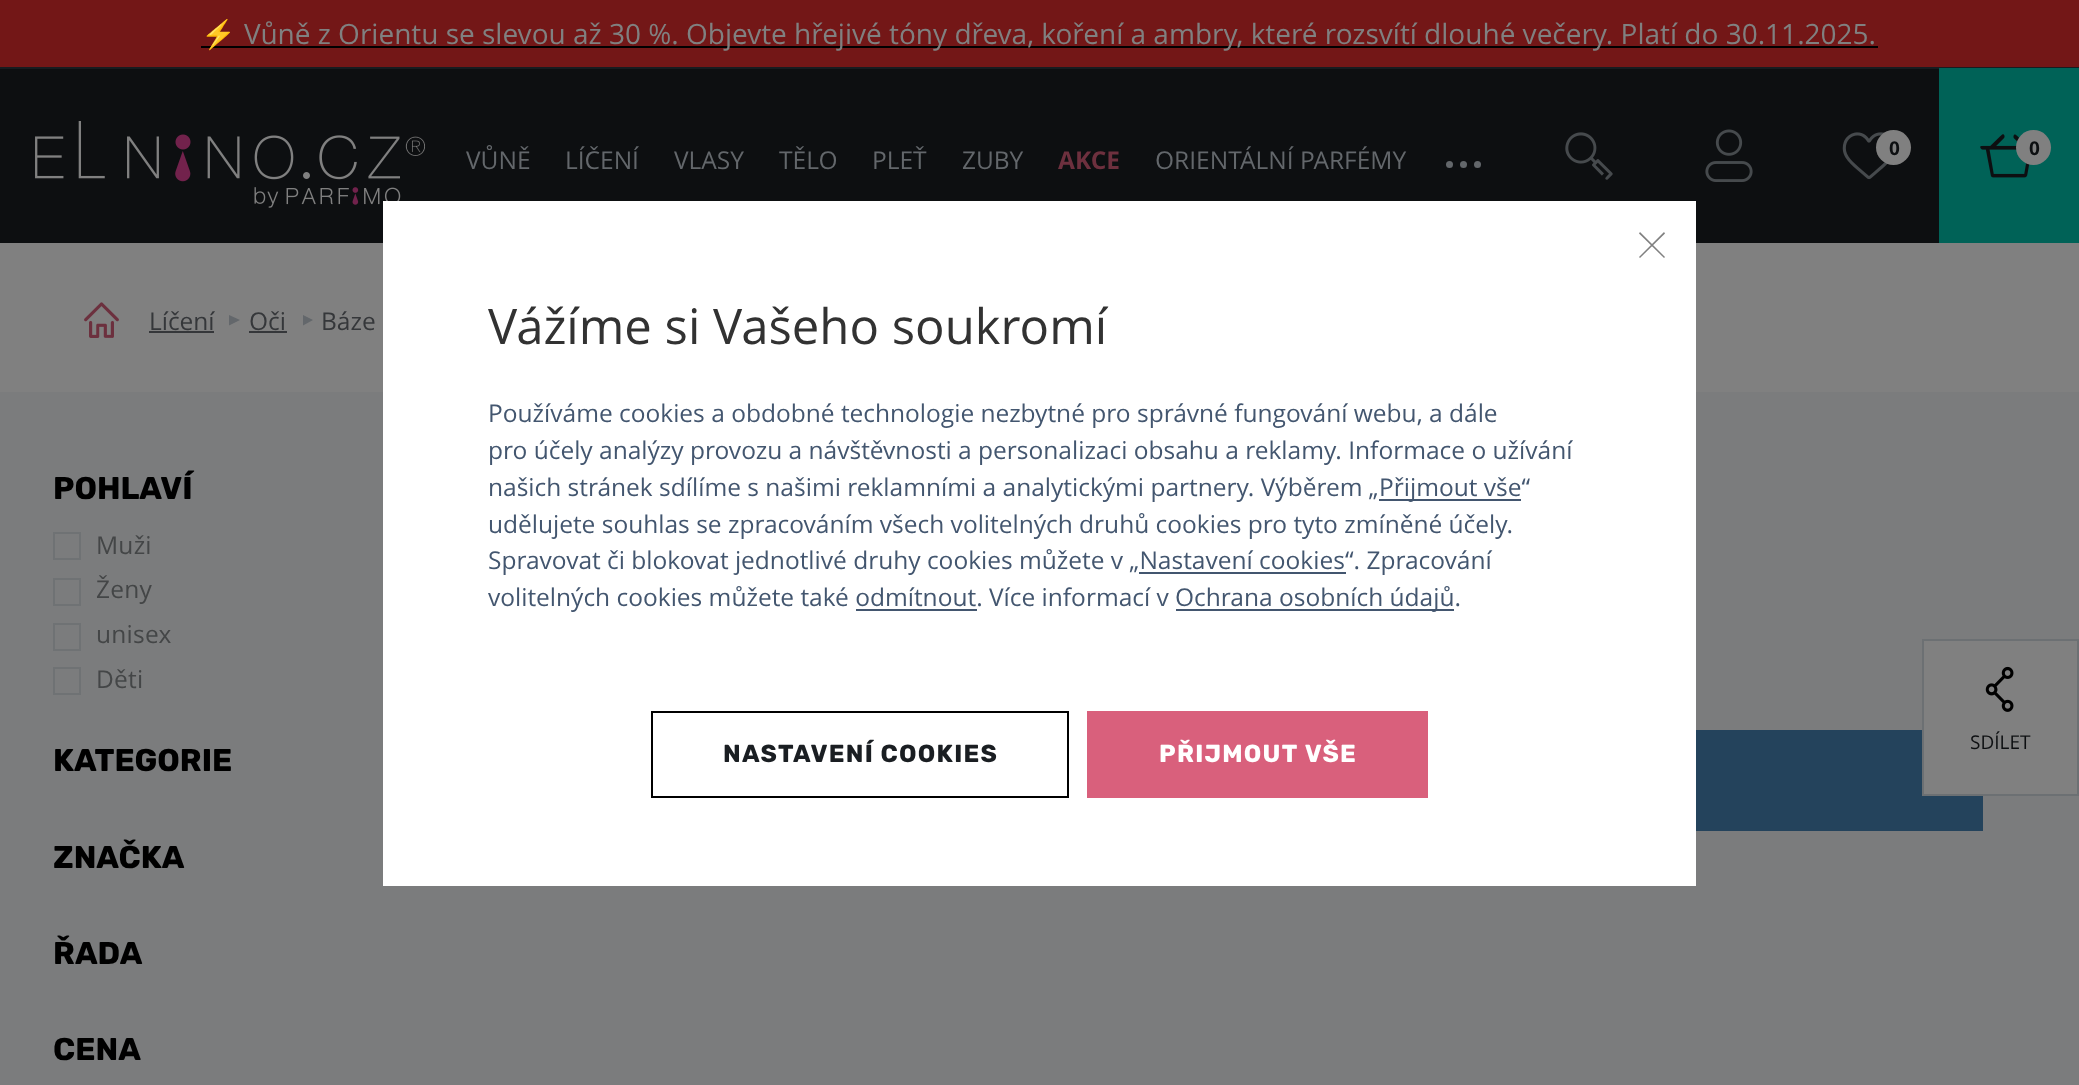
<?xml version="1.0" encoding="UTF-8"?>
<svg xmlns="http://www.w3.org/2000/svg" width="2079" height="1085">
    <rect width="100%" height="100%" fill="#808080"/>
    <rect x="0" y="0" width="2079" height="67" fill="#731717"/>
    <rect x="0" y="67" width="2079" height="2" fill="#181C20"/>
    <rect x="201" y="46" width="1677" height="2" fill="#000000"/>
    <text x="201" y="44" font-family="Noto Color Emoji" font-size="28" fill="#808080">⚡</text>
    <text x="244" y="44" font-family="Open Sans" font-size="28" fill="#808080">Vůně z Orientu se slevou až 30 %. Objevte hřejivé tóny dřeva, koření a ambry, které rozsvítí dlouhé večery. Platí do 30.11.2025.</text>
    <rect x="0" y="69" width="1939" height="174" fill="#0D0F11"/>
    <image x="35" y="121" width="390" height="87" href="img_01.png"/>
    <text x="466" y="169" font-family="Open Sans" font-size="24.5" fill="#63676B">VŮNĚ</text>
    <text x="565" y="169" font-family="Open Sans" font-size="24.5" fill="#63676B">LÍČENÍ</text>
    <text x="674" y="169" font-family="Open Sans" font-size="24.5" fill="#63676B">VLASY</text>
    <text x="779" y="169" font-family="Open Sans" font-size="24.5" fill="#63676B">TĚLO</text>
    <text x="872" y="169" font-family="Open Sans" font-size="24.5" fill="#63676B">PLEŤ</text>
    <text x="962" y="169" font-family="Open Sans" font-size="24.5" fill="#63676B">ZUBY</text>
    <text x="1058" y="169" font-family="Open Sans" font-size="24.5" font-weight="700" fill="#6D303E">AKCE</text>
    <text x="1155" y="169" font-family="Open Sans" font-size="24.5" fill="#63676B">ORIENTÁLNÍ PARFÉMY</text>
    <circle cx="1449.5" cy="164.5" r="3.5" fill="#63676B"/>
    <circle cx="1463.5" cy="164.5" r="3.5" fill="#63676B"/>
    <circle cx="1477.5" cy="164.5" r="3.5" fill="#63676B"/>
    <image x="1565" y="132" width="48" height="48" href="img_02.png"/>
    <image x="1705" y="129" width="48" height="53" href="img_03.png"/>
    <image x="1842" y="132" width="46" height="48" href="img_04.png"/>
    <circle cx="1893.5" cy="147.5" r="17.5" fill="#808080"/>
    <text x="1889" y="155" font-family="Open Sans" font-size="19" font-weight="700" fill="#0D0F11">0</text>
    <rect x="1939" y="68" width="140" height="175" fill="#006257"/>
    <image x="1980" y="134" width="50" height="44" href="img_05.png"/>
    <circle cx="2033.5" cy="147.5" r="17.5" fill="#808080"/>
    <text x="2029" y="155" font-family="Open Sans" font-size="19" font-weight="700" fill="#0D0F11">0</text>
    <image x="84" y="302" width="35" height="36" href="img_06.png"/>
    <text x="149" y="330" font-family="Open Sans" font-size="24.5" fill="#35373A">Líčení</text>
    <rect x="149" y="331" width="65" height="2" fill="#35373A"/>
    <path d="M 229 325.5 V 315 L 240 320 Z" fill="#63676B"/>
    <text x="249" y="330" font-family="Open Sans" font-size="24.5" fill="#35373A">Oči</text>
    <rect x="249" y="331" width="38" height="2" fill="#35373A"/>
    <path d="M 303 325.5 V 315 L 313 320 Z" fill="#63676B"/>
    <text x="321" y="330" font-family="Open Sans" font-size="24.5" fill="#35373A">Báze</text>
    <rect x="0" y="392" width="2079" height="693" fill="#7B7C7D"/>
    <text x="53" y="499" font-family="Rubik" font-size="31.5" font-weight="700" fill="#000000">POHLAVÍ</text>
    <rect x="54" y="533" width="26" height="26" fill="none" stroke="#6F7274" stroke-width="2"/>
    <text x="96" y="554" font-family="Open Sans" font-size="24.5" letter-spacing="0.25" fill="#444647">Muži</text>
    <rect x="54" y="579" width="26" height="26" fill="none" stroke="#6F7274" stroke-width="2"/>
    <text x="96" y="598" font-family="Open Sans" font-size="24.5" letter-spacing="0.25" fill="#444647">Ženy</text>
    <rect x="54" y="624" width="26" height="26" fill="none" stroke="#6F7274" stroke-width="2"/>
    <text x="96" y="643" font-family="Open Sans" font-size="24.5" letter-spacing="0.25" fill="#444647">unisex</text>
    <rect x="54" y="668" width="26" height="26" fill="none" stroke="#6F7274" stroke-width="2"/>
    <text x="96" y="688" font-family="Open Sans" font-size="24.5" letter-spacing="0.25" fill="#444647">Děti</text>
    <text x="53" y="771" font-family="Rubik" font-size="31.5" font-weight="700" fill="#000000">KATEGORIE</text>
    <text x="53" y="868" font-family="Rubik" font-size="31.5" font-weight="700" fill="#000000">ZNAČKA</text>
    <text x="53" y="964" font-family="Rubik" font-size="31.5" font-weight="700" fill="#000000">ŘADA</text>
    <text x="53" y="1060" font-family="Rubik" font-size="31.5" font-weight="700" fill="#000000">CENA</text>
    <rect x="1696" y="730" width="287" height="101" fill="#24435C"/>
    <rect x="383" y="201" width="1313" height="685" fill="#FFFFFF"/>
    <path d="M 1640 232 L 1665 257 L 1664 258 L 1639 233.5 Z" fill="#808080"/>
    <path d="M 1639 257 L 1664 232 L 1665 233.5 L 1640 258 Z" fill="#808080"/>
    <text x="488" y="344" font-family="Open Sans" font-size="49" fill="#323232">Vážíme si Vašeho soukromí</text>
    <text font-family="Open Sans" font-size="24.5" fill="#43566F">
        <tspan x="488" y="422">Používáme cookies a obdobné technologie nezbytné pro správné fungování webu, a dále</tspan>
        <tspan x="488" y="459">pro účely analýzy provozu a návštěvnosti a personalizaci obsahu a reklamy. Informace o užívání</tspan>
        <tspan x="488" y="496">našich stránek sdílíme s našimi reklamními a analytickými partnery. Výběrem „</tspan>
    </text>
    <rect x="1379" y="499" width="142" height="2" fill="#43566F"/>
    <text x="1379" y="496" font-family="Open Sans" font-size="24.5" fill="#43566F">Přijmout vše“</text>
    <text font-family="Open Sans" font-size="24.5" fill="#43566F">
        <tspan x="488" y="533">udělujete souhlas se zpracováním všech volitelných druhů cookies pro tyto zmíněné účely.</tspan>
        <tspan x="488" y="569">Spravovat či blokovat jednotlivé druhy cookies můžete v „Nastavení cookies</tspan>
    </text>
    <rect x="1139" y="572" width="207" height="2" fill="#43566F"/>
    <text x="1345" y="569" font-family="Open Sans" font-size="24.5" fill="#43566F">“. Zpracování</text>
    <text x="488" y="606" font-family="Open Sans" font-size="24.5" fill="#43566F">volitelných cookies můžete také odmítnout. Více informací v</text>
    <rect x="1176" y="609" width="278" height="2" fill="#43566F"/>
    <text x="1175" y="606" font-family="Open Sans" font-size="24.5" fill="#43566F">Ochrana osobních údajů.</text>
    <rect x="856" y="609" width="121" height="2" fill="#43566F"/>
    <rect x="652" y="712" width="416" height="85" fill="none" stroke="#000000" stroke-width="2"/>
    <text x="723" y="762" font-family="Rubik" font-size="24.5" font-weight="700" letter-spacing="1.25" fill="#1A1E22">NASTAVENÍ COOKIES</text>
    <rect x="1087" y="711" width="341" height="87" fill="#D9607C"/>
    <text x="1159" y="762" word-spacing="1" font-family="Rubik" font-size="24.5" font-weight="700" letter-spacing="1.25" fill="#FFFFFF">PŘIJMOUT VŠE</text>
    <rect x="1923" y="640" width="155" height="155" fill="#808080" stroke="#6C7073" stroke-width="2"/>
    <image x="1985" y="666" width="29" height="46" href="img_07.png"/>
    <text x="1970" y="749" font-family="Open Sans" font-size="19" fill="#0D0F11">SDÍLET</text>
</svg>
